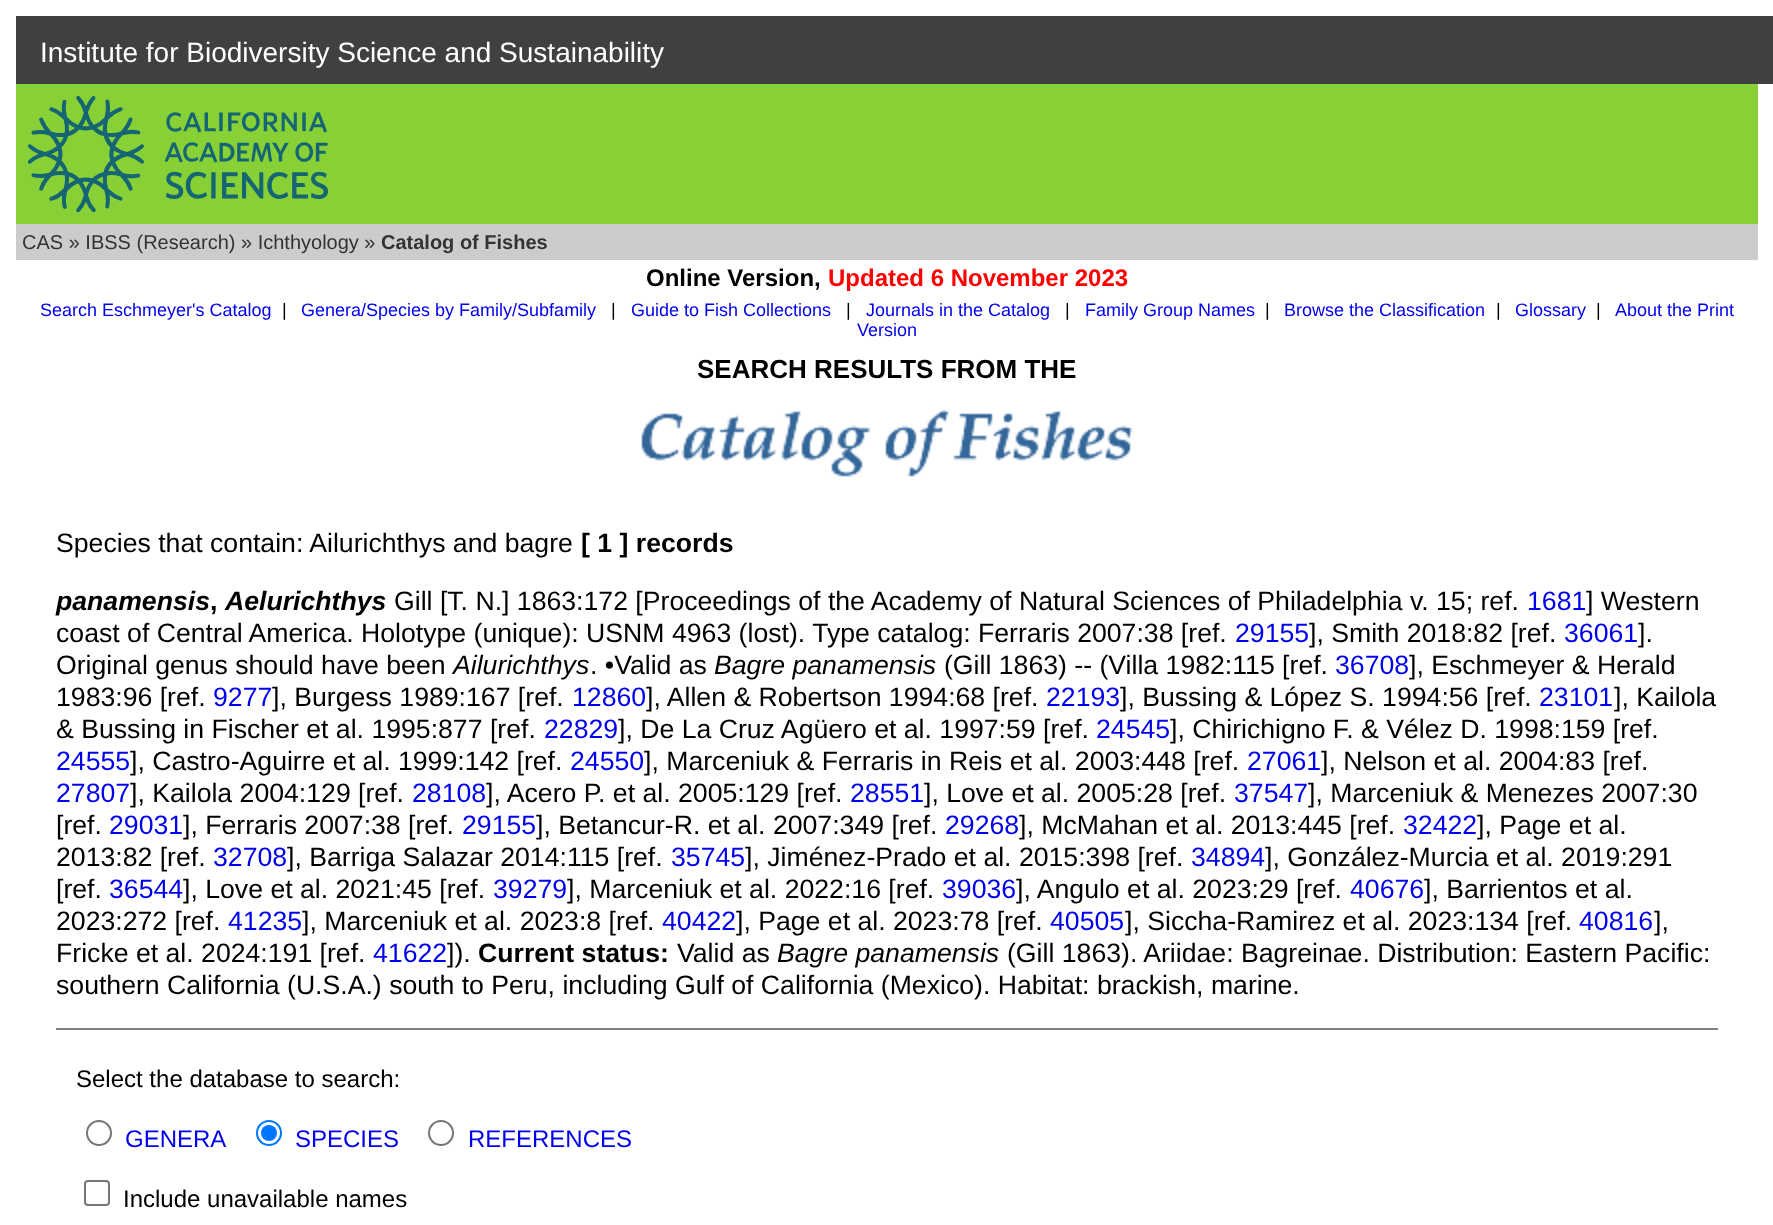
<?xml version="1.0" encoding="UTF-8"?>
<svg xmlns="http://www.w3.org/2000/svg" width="1773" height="1225">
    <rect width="100%" height="100%" fill="#FFFFFF"/>
    <rect x="16" y="16" width="1757" height="68" fill="#404040"/>
    <text x="40" y="62" font-family="Liberation Sans" font-size="28" fill="#FFFFFF">Institute for Biodiversity Science and Sustainability</text>
    <rect x="16" y="84" width="1742" height="140" fill="#87D036"/>
    <image x="28" y="96" width="300" height="116" href="img_01.png"/>
    <rect x="16" y="224" width="1742" height="36" fill="#CCCCCC"/>
    <text x="22" y="249" font-family="Liberation Sans" font-size="20" fill="#333333">CAS » IBSS (Research) » Ichthyology »</text>
    <text x="381" y="249" font-family="Liberation Sans" font-size="20" font-weight="700" fill="#333333">Catalog of Fishes</text>
    <text x="646" y="286" font-family="Liberation Sans" font-size="24" font-weight="700" fill="#000000">Online Version,</text>
    <text x="828" y="286" font-family="Liberation Sans" font-size="24" font-weight="700" fill="#FF0000">Updated 6 November 2023</text>
    <text x="40" y="316" font-family="Liberation Sans" font-size="18" fill="#0000EE">Search Eschmeyer's Catalog</text>
    <text x="282" y="316" font-family="Liberation Sans" font-size="18" fill="#000000">|</text>
    <text x="301" y="316" font-family="Liberation Sans" font-size="18" fill="#0000EE">Genera/Species by Family/Subfamily</text>
    <text x="611" y="316" font-family="Liberation Sans" font-size="18" fill="#000000">|</text>
    <text x="631" y="316" font-family="Liberation Sans" font-size="18" fill="#0000EE">Guide to Fish Collections</text>
    <text x="846" y="316" font-family="Liberation Sans" font-size="18" fill="#000000">|</text>
    <text x="866" y="316" font-family="Liberation Sans" font-size="18" fill="#0000EE">Journals in the Catalog</text>
    <text x="1065" y="316" font-family="Liberation Sans" font-size="18" fill="#000000">|</text>
    <text x="1085" y="316" font-family="Liberation Sans" font-size="18" fill="#0000EE">Family Group Names</text>
    <text x="1265" y="316" font-family="Liberation Sans" font-size="18" fill="#000000">|</text>
    <text x="1284" y="316" font-family="Liberation Sans" font-size="18" fill="#0000EE">Browse the Classification</text>
    <text x="1496" y="316" font-family="Liberation Sans" font-size="18" fill="#000000">|</text>
    <text x="1515" y="316" font-family="Liberation Sans" font-size="18" fill="#0000EE">Glossary</text>
    <text x="1596" y="316" font-family="Liberation Sans" font-size="18" fill="#000000">|</text>
    <text x="1615" y="316" font-family="Liberation Sans" font-size="18" fill="#0000EE">About the Print</text>
    <text x="857" y="336" font-family="Liberation Sans" font-size="18" fill="#0000EE">Version</text>
    <text x="697" y="378" font-family="Liberation Sans" font-size="26" font-weight="700" fill="#000000">SEARCH RESULTS FROM THE</text>
    <image x="641" y="409" width="492" height="68" href="img_02.png"/>
    <text x="56" y="552" font-family="Liberation Sans" font-size="26.65" fill="#000000">Species that contain: Ailurichthys and bagre</text>
    <text x="581" y="552" font-family="Liberation Sans" font-size="26.65" font-weight="700" fill="#000000">[ 1 ] records</text>
    <text x="56" y="610" font-family="Liberation Sans" font-size="26.65" font-weight="700" font-style="italic" fill="#000000">panamensis</text>
    <text x="210" y="610" font-family="Liberation Sans" font-size="26.65" font-weight="700" fill="#000000">,</text>
    <text x="225" y="610" font-family="Liberation Sans" font-size="26.65" font-weight="700" font-style="italic" fill="#000000">Aelurichthys</text>
    <text x="394" y="610" font-family="Liberation Sans" font-size="26.65" fill="#000000">Gill [T. N.] 1863:172 [Proceedings of the Academy of Natural Sciences of Philadelphia v. 15; ref.</text>
    <text x="1527" y="610" font-family="Liberation Sans" font-size="26.65" fill="#0000EE">1681</text>
    <text x="1586" y="610" font-family="Liberation Sans" font-size="26.65" fill="#000000">] Western</text>
    <text x="56" y="642" font-family="Liberation Sans" font-size="26.65" fill="#000000">coast of Central America. Holotype (unique): USNM 4963 (lost). Type catalog: Ferraris 2007:38 [ref.</text>
    <text x="1235" y="642" font-family="Liberation Sans" font-size="26.65" fill="#0000EE">29155</text>
    <text x="1309" y="642" font-family="Liberation Sans" font-size="26.65" fill="#000000">], Smith 2018:82 [ref.</text>
    <text x="1564" y="642" font-family="Liberation Sans" font-size="26.65" fill="#0000EE">36061</text>
    <text x="1638" y="642" font-family="Liberation Sans" font-size="26.65" fill="#000000">].</text>
    <text x="56" y="674" font-family="Liberation Sans" font-size="26.65" fill="#000000">Original genus should have been</text>
    <text x="453" y="674" font-family="Liberation Sans" font-size="26.65" font-style="italic" fill="#000000">Ailurichthys</text>
    <text x="590" y="674" font-family="Liberation Sans" font-size="26.65" fill="#000000">. •Valid as</text>
    <text x="714" y="674" font-family="Liberation Sans" font-size="26.65" font-style="italic" fill="#000000">Bagre panamensis</text>
    <text x="944" y="674" font-family="Liberation Sans" font-size="26.65" fill="#000000">(Gill 1863) -- (Villa 1982:115 [ref.</text>
    <text x="1335" y="674" font-family="Liberation Sans" font-size="26.65" fill="#0000EE">36708</text>
    <text x="1409" y="674" font-family="Liberation Sans" font-size="26.65" fill="#000000">], Eschmeyer &amp; Herald</text>
    <text x="56" y="706" font-family="Liberation Sans" font-size="26.65" fill="#000000">1983:96 [ref.</text>
    <text x="213" y="706" font-family="Liberation Sans" font-size="26.65" fill="#0000EE">9277</text>
    <text x="272" y="706" font-family="Liberation Sans" font-size="26.65" fill="#000000">], Burgess 1989:167 [ref.</text>
    <text x="572" y="706" font-family="Liberation Sans" font-size="26.65" fill="#0000EE">12860</text>
    <text x="646" y="706" font-family="Liberation Sans" font-size="26.65" fill="#000000">], Allen &amp; Robertson 1994:68 [ref.</text>
    <text x="1046" y="706" font-family="Liberation Sans" font-size="26.65" fill="#0000EE">22193</text>
    <text x="1120" y="706" font-family="Liberation Sans" font-size="26.65" fill="#000000">], Bussing &amp; López S. 1994:56 [ref.</text>
    <text x="1539" y="706" font-family="Liberation Sans" font-size="26.65" fill="#0000EE">23101</text>
    <text x="1614" y="706" font-family="Liberation Sans" font-size="26.65" fill="#000000">], Kailola</text>
    <text x="56" y="738" font-family="Liberation Sans" font-size="26.65" fill="#000000">&amp; Bussing in Fischer et al. 1995:877 [ref.</text>
    <text x="544" y="738" font-family="Liberation Sans" font-size="26.65" fill="#0000EE">22829</text>
    <text x="618" y="738" font-family="Liberation Sans" font-size="26.65" fill="#000000">], De La Cruz Agüero et al. 1997:59 [ref.</text>
    <text x="1096" y="738" font-family="Liberation Sans" font-size="26.65" fill="#0000EE">24545</text>
    <text x="1170" y="738" font-family="Liberation Sans" font-size="26.65" fill="#000000">], Chirichigno F. &amp; Vélez D. 1998:159 [ref.</text>
    <text x="56" y="770" font-family="Liberation Sans" font-size="26.65" fill="#0000EE">24555</text>
    <text x="130" y="770" font-family="Liberation Sans" font-size="26.65" fill="#000000">], Castro-Aguirre et al. 1999:142 [ref.</text>
    <text x="570" y="770" font-family="Liberation Sans" font-size="26.65" fill="#0000EE">24550</text>
    <text x="644" y="770" font-family="Liberation Sans" font-size="26.65" fill="#000000">], Marceniuk &amp; Ferraris in Reis et al. 2003:448 [ref.</text>
    <text x="1247" y="770" font-family="Liberation Sans" font-size="26.65" fill="#0000EE">27061</text>
    <text x="1321" y="770" font-family="Liberation Sans" font-size="26.65" fill="#000000">], Nelson et al. 2004:83 [ref.</text>
    <text x="56" y="802" font-family="Liberation Sans" font-size="26.65" fill="#0000EE">27807</text>
    <text x="130" y="802" font-family="Liberation Sans" font-size="26.65" fill="#000000">], Kailola 2004:129 [ref.</text>
    <text x="412" y="802" font-family="Liberation Sans" font-size="26.65" fill="#0000EE">28108</text>
    <text x="486" y="802" font-family="Liberation Sans" font-size="26.65" fill="#000000">], Acero P. et al. 2005:129 [ref.</text>
    <text x="850" y="802" font-family="Liberation Sans" font-size="26.65" fill="#0000EE">28551</text>
    <text x="924" y="802" font-family="Liberation Sans" font-size="26.65" fill="#000000">], Love et al. 2005:28 [ref.</text>
    <text x="1234" y="802" font-family="Liberation Sans" font-size="26.65" fill="#0000EE">37547</text>
    <text x="1308" y="802" font-family="Liberation Sans" font-size="26.65" fill="#000000">], Marceniuk &amp; Menezes 2007:30</text>
    <text x="56" y="834" font-family="Liberation Sans" font-size="26.65" fill="#000000">[ref.</text>
    <text x="109" y="834" font-family="Liberation Sans" font-size="26.65" fill="#0000EE">29031</text>
    <text x="183" y="834" font-family="Liberation Sans" font-size="26.65" fill="#000000">], Ferraris 2007:38 [ref.</text>
    <text x="462" y="834" font-family="Liberation Sans" font-size="26.65" fill="#0000EE">29155</text>
    <text x="536" y="834" font-family="Liberation Sans" font-size="26.65" fill="#000000">], Betancur-R. et al. 2007:349 [ref.</text>
    <text x="945" y="834" font-family="Liberation Sans" font-size="26.65" fill="#0000EE">29268</text>
    <text x="1019" y="834" font-family="Liberation Sans" font-size="26.65" fill="#000000">], McMahan et al. 2013:445 [ref.</text>
    <text x="1403" y="834" font-family="Liberation Sans" font-size="26.65" fill="#0000EE">32422</text>
    <text x="1477" y="834" font-family="Liberation Sans" font-size="26.65" fill="#000000">], Page et al.</text>
    <text x="56" y="866" font-family="Liberation Sans" font-size="26.65" fill="#000000">2013:82 [ref.</text>
    <text x="213" y="866" font-family="Liberation Sans" font-size="26.65" fill="#0000EE">32708</text>
    <text x="287" y="866" font-family="Liberation Sans" font-size="26.65" fill="#000000">], Barriga Salazar 2014:115 [ref.</text>
    <text x="671" y="866" font-family="Liberation Sans" font-size="26.65" fill="#0000EE">35745</text>
    <text x="745" y="866" font-family="Liberation Sans" font-size="26.65" fill="#000000">], Jiménez-Prado et al. 2015:398 [ref.</text>
    <text x="1191" y="866" font-family="Liberation Sans" font-size="26.65" fill="#0000EE">34894</text>
    <text x="1265" y="866" font-family="Liberation Sans" font-size="26.65" fill="#000000">], González-Murcia et al. 2019:291</text>
    <text x="56" y="898" font-family="Liberation Sans" font-size="26.65" fill="#000000">[ref.</text>
    <text x="109" y="898" font-family="Liberation Sans" font-size="26.65" fill="#0000EE">36544</text>
    <text x="183" y="898" font-family="Liberation Sans" font-size="26.65" fill="#000000">], Love et al. 2021:45 [ref.</text>
    <text x="493" y="898" font-family="Liberation Sans" font-size="26.65" fill="#0000EE">39279</text>
    <text x="567" y="898" font-family="Liberation Sans" font-size="26.65" fill="#000000">], Marceniuk et al. 2022:16 [ref.</text>
    <text x="942" y="898" font-family="Liberation Sans" font-size="26.65" fill="#0000EE">39036</text>
    <text x="1016" y="898" font-family="Liberation Sans" font-size="26.65" fill="#000000">], Angulo et al. 2023:29 [ref.</text>
    <text x="1350" y="898" font-family="Liberation Sans" font-size="26.65" fill="#0000EE">40676</text>
    <text x="1424" y="898" font-family="Liberation Sans" font-size="26.65" fill="#000000">], Barrientos et al.</text>
    <text x="56" y="930" font-family="Liberation Sans" font-size="26.65" fill="#000000">2023:272 [ref.</text>
    <text x="228" y="930" font-family="Liberation Sans" font-size="26.65" fill="#0000EE">41235</text>
    <text x="302" y="930" font-family="Liberation Sans" font-size="26.65" fill="#000000">], Marceniuk et al. 2023:8 [ref.</text>
    <text x="662" y="930" font-family="Liberation Sans" font-size="26.65" fill="#0000EE">40422</text>
    <text x="736" y="930" font-family="Liberation Sans" font-size="26.65" fill="#000000">], Page et al. 2023:78 [ref.</text>
    <text x="1050" y="930" font-family="Liberation Sans" font-size="26.65" fill="#0000EE">40505</text>
    <text x="1125" y="930" font-family="Liberation Sans" font-size="26.65" fill="#000000">], Siccha-Ramirez et al. 2023:134 [ref.</text>
    <text x="1579" y="930" font-family="Liberation Sans" font-size="26.65" fill="#0000EE">40816</text>
    <text x="1654" y="930" font-family="Liberation Sans" font-size="26.65" fill="#000000">],</text>
    <text x="56" y="962" font-family="Liberation Sans" font-size="26.65" fill="#000000">Fricke et al. 2024:191 [ref.</text>
    <text x="373" y="962" font-family="Liberation Sans" font-size="26.65" fill="#0000EE">41622</text>
    <text x="447" y="962" font-family="Liberation Sans" font-size="26.65" fill="#000000">]).</text>
    <text x="478" y="962" font-family="Liberation Sans" font-size="26.65" font-weight="700" fill="#000000">Current status:</text>
    <text x="677" y="962" font-family="Liberation Sans" font-size="26.65" fill="#000000">Valid as</text>
    <text x="777" y="962" font-family="Liberation Sans" font-size="26.65" font-style="italic" fill="#000000">Bagre panamensis</text>
    <text x="1007" y="962" font-family="Liberation Sans" font-size="26.65" fill="#000000">(Gill 1863). Ariidae: Bagreinae. Distribution: Eastern Pacific:</text>
    <text x="56" y="994" font-family="Liberation Sans" font-size="26.65" fill="#000000">southern California (U.S.A.) south to Peru, including Gulf of California (Mexico). Habitat: brackish, marine.</text>
    <rect x="56" y="1028" width="1662" height="2" fill="#808080"/>
    <text x="76" y="1087" font-family="Liberation Sans" font-size="24" fill="#000000">Select the database to search:</text>
    <circle cx="99" cy="1133" r="12" fill="none" stroke="#767676" stroke-width="2"/>
    <text x="125" y="1147" font-family="Liberation Sans" font-size="24" fill="#0000EE">GENERA</text>
    <circle cx="269" cy="1133" r="12" fill="none" stroke="#0075FF" stroke-width="2"/>
    <circle cx="269" cy="1133" r="8" fill="#0075FF"/>
    <text x="295" y="1147" font-family="Liberation Sans" font-size="24" fill="#0000EE">SPECIES</text>
    <circle cx="441" cy="1133" r="12" fill="none" stroke="#767676" stroke-width="2"/>
    <text x="468" y="1147" font-family="Liberation Sans" font-size="24" fill="#0000EE">REFERENCES</text>
    <rect x="85" y="1181" width="24" height="24" rx="3" fill="none" stroke="#767676" stroke-width="2"/>
    <text x="123" y="1207" font-family="Liberation Sans" font-size="24" fill="#000000">Include unavailable names</text>
</svg>
